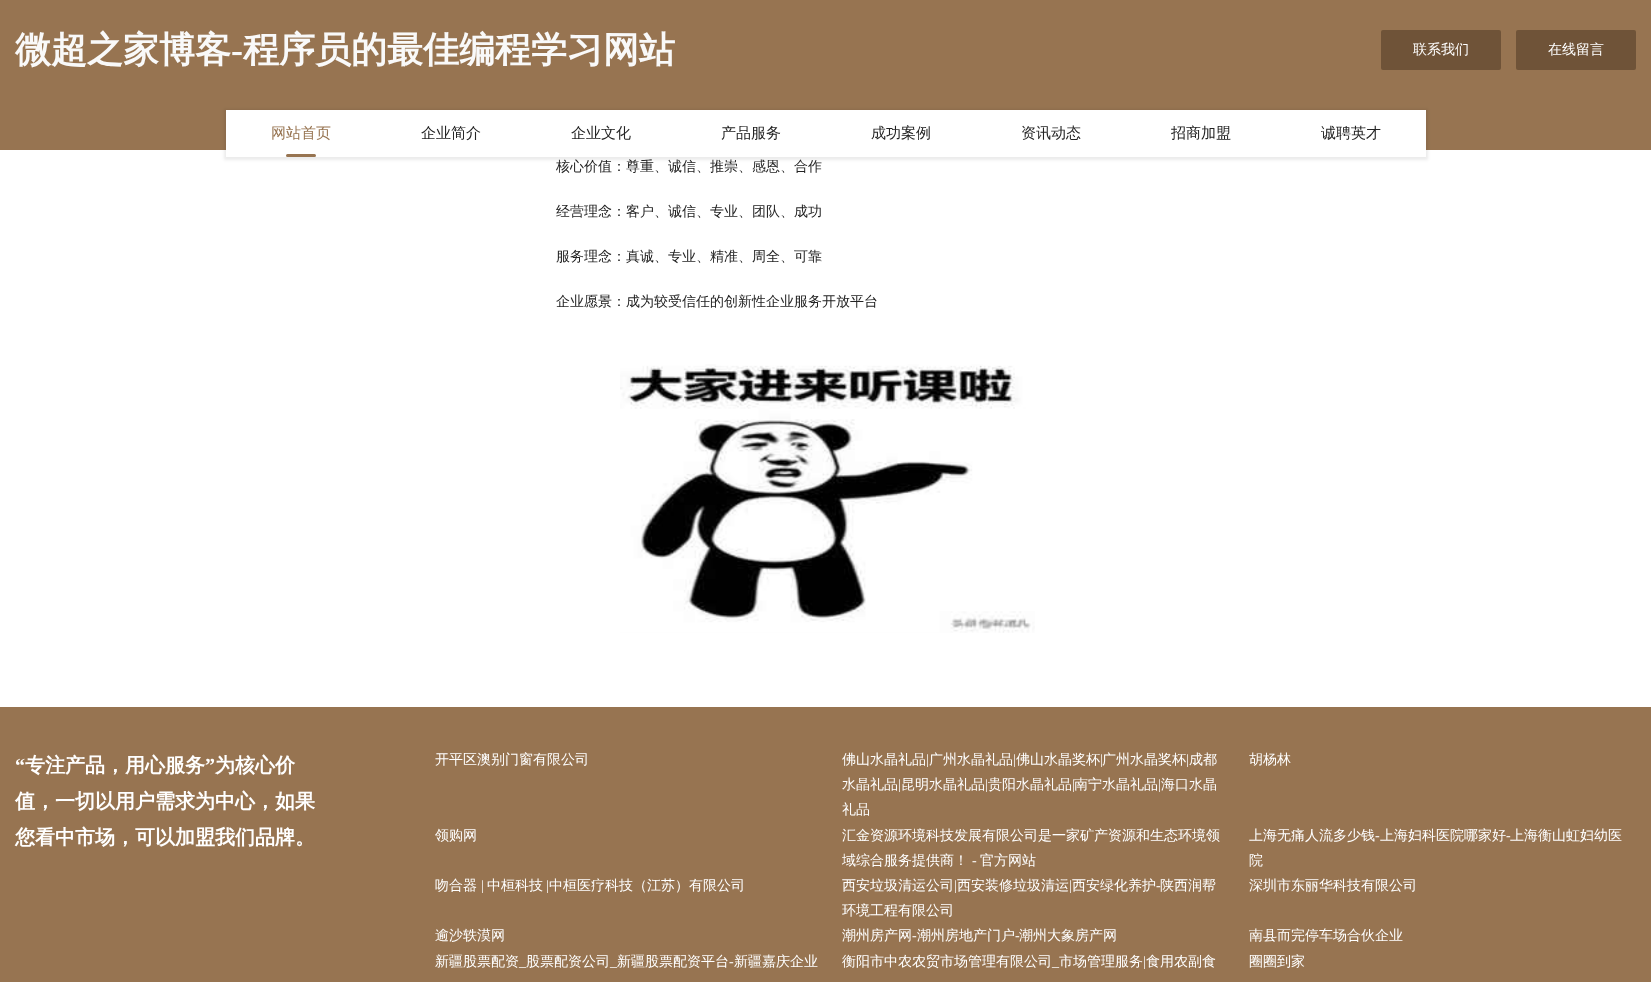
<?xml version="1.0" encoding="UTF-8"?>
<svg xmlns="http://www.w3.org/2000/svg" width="1651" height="982">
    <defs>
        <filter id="blur1" x="-50%" y="-200%" width="200%" height="500%"><feGaussianBlur stdDeviation="1.5"/></filter>
    </defs>
    <rect width="100%" height="100%" fill="#FFFFFF"/>
    <rect x="0" y="0" width="1651" height="150" fill="#977451"/>
    <text x="15" y="62" font-family="WenQuanYi Zen Hei" font-size="36" font-weight="700" fill="#F9F9F9">微超之家博客</text>
    <text x="231" y="62" font-family="Liberation Serif" font-size="36" font-weight="700" fill="#F9F9F9">-</text>
    <text x="243" y="62" font-family="WenQuanYi Zen Hei" font-size="36" font-weight="700" fill="#F9F9F9">程序员的最佳编程学习网站</text>
    <rect x="1381" y="30" width="120" height="40" rx="2" fill="#6F5338"/>
    <text x="1413" y="54" font-family="WenQuanYi Zen Hei" font-size="14" font-weight="500" fill="#FFFFFF">联系我们</text>
    <rect x="1516" y="30" width="120" height="40" rx="2" fill="#6F5338"/>
    <text x="1548" y="54" font-family="WenQuanYi Zen Hei" font-size="14" font-weight="500" fill="#FFFFFF">在线留言</text>
    <rect x="224" y="109" width="1204" height="51" fill="#000000" fill-opacity="0.08" filter="url(#blur1)"/>
    <rect x="226" y="110" width="1200" height="47" fill="#FFFFFF"/>
    <text x="271" y="138" font-family="WenQuanYi Zen Hei" font-size="15" font-weight="500" fill="#977451">网站首页</text>
    <rect x="286" y="154" width="30" height="3" rx="1.5" fill="#977451"/>
    <text x="421" y="138" font-family="WenQuanYi Zen Hei" font-size="15" font-weight="500" fill="#232323">企业简介</text>
    <text x="571" y="138" font-family="WenQuanYi Zen Hei" font-size="15" font-weight="500" fill="#232323">企业文化</text>
    <text x="721" y="138" font-family="WenQuanYi Zen Hei" font-size="15" font-weight="500" fill="#232323">产品服务</text>
    <text x="871" y="138" font-family="WenQuanYi Zen Hei" font-size="15" font-weight="500" fill="#232323">成功案例</text>
    <text x="1021" y="138" font-family="WenQuanYi Zen Hei" font-size="15" font-weight="500" fill="#232323">资讯动态</text>
    <text x="1171" y="138" font-family="WenQuanYi Zen Hei" font-size="15" font-weight="500" fill="#232323">招商加盟</text>
    <text x="1321" y="138" font-family="WenQuanYi Zen Hei" font-size="15" font-weight="500" fill="#232323">诚聘英才</text>
    <text x="556" y="171" font-family="WenQuanYi Zen Hei" font-size="14" font-weight="500" fill="#232323">核心价值：尊重、诚信、推崇、感恩、合作</text>
    <text x="556" y="216" font-family="WenQuanYi Zen Hei" font-size="14" font-weight="500" fill="#232323">经营理念：客户、诚信、专业、团队、成功</text>
    <text x="556" y="261" font-family="WenQuanYi Zen Hei" font-size="14" font-weight="500" fill="#232323">服务理念：真诚、专业、精准、周全、可靠</text>
    <text x="556" y="306" font-family="WenQuanYi Zen Hei" font-size="14" font-weight="500" fill="#232323">企业愿景：成为较受信任的创新性企业服务开放平台</text>
    <image x="620" y="364" width="415" height="269" href="img_01.png"/>
    <rect x="0" y="707" width="1651" height="275" fill="#977451"/>
    <text x="15" y="772" font-family="Liberation Serif" font-size="20" font-weight="700" fill="#FFFFFF">“</text>
    <text x="25" y="772" font-family="WenQuanYi Zen Hei" font-size="20" font-weight="700" fill="#FFFFFF">专注产品，用心服务</text>
    <text x="205" y="772" font-family="Liberation Serif" font-size="20" font-weight="700" fill="#FFFFFF">”</text>
    <text x="215" y="772" font-family="WenQuanYi Zen Hei" font-size="20" font-weight="700" fill="#FFFFFF">为核心价</text>
    <text font-family="WenQuanYi Zen Hei" font-size="20" font-weight="700" fill="#FFFFFF">
        <tspan x="15" y="808">值，一切以用户需求为中心，如果</tspan>
        <tspan x="15" y="844">您看中市场，可以加盟我们品牌。</tspan>
    </text>
    <text x="435" y="764" font-family="WenQuanYi Zen Hei" font-size="14" font-weight="500" fill="#FFFFFF">开平区澳别门窗有限公司</text>
    <text x="842" y="764" font-family="WenQuanYi Zen Hei" font-size="14" font-weight="500" fill="#FFFFFF">佛山水晶礼品</text>
    <text x="926" y="764" font-family="Liberation Serif" font-size="14" fill="#FFFFFF">|</text>
    <text x="929" y="764" font-family="WenQuanYi Zen Hei" font-size="14" font-weight="500" fill="#FFFFFF">广州水晶礼品</text>
    <text x="1013" y="764" font-family="Liberation Serif" font-size="14" fill="#FFFFFF">|</text>
    <text x="1016" y="764" font-family="WenQuanYi Zen Hei" font-size="14" font-weight="500" fill="#FFFFFF">佛山水晶奖杯</text>
    <text x="1100" y="764" font-family="Liberation Serif" font-size="14" fill="#FFFFFF">|</text>
    <text x="1102" y="764" font-family="WenQuanYi Zen Hei" font-size="14" font-weight="500" fill="#FFFFFF">广州水晶奖杯</text>
    <text x="1186" y="764" font-family="Liberation Serif" font-size="14" fill="#FFFFFF">|</text>
    <text x="1189" y="764" font-family="WenQuanYi Zen Hei" font-size="14" font-weight="500" fill="#FFFFFF">成都</text>
    <text x="842" y="789" font-family="WenQuanYi Zen Hei" font-size="14" font-weight="500" fill="#FFFFFF">水晶礼品</text>
    <text x="898" y="789" font-family="Liberation Serif" font-size="14" fill="#FFFFFF">|</text>
    <text x="901" y="789" font-family="WenQuanYi Zen Hei" font-size="14" font-weight="500" fill="#FFFFFF">昆明水晶礼品</text>
    <text x="985" y="789" font-family="Liberation Serif" font-size="14" fill="#FFFFFF">|</text>
    <text x="988" y="789" font-family="WenQuanYi Zen Hei" font-size="14" font-weight="500" fill="#FFFFFF">贵阳水晶礼品</text>
    <text x="1072" y="789" font-family="Liberation Serif" font-size="14" fill="#FFFFFF">|</text>
    <text x="1074" y="789" font-family="WenQuanYi Zen Hei" font-size="14" font-weight="500" fill="#FFFFFF">南宁水晶礼品</text>
    <text x="1158" y="789" font-family="Liberation Serif" font-size="14" fill="#FFFFFF">|</text>
    <text x="1161" y="789" font-family="WenQuanYi Zen Hei" font-size="14" font-weight="500" fill="#FFFFFF">海口水晶</text>
    <text x="842" y="814" font-family="WenQuanYi Zen Hei" font-size="14" font-weight="500" fill="#FFFFFF">礼品</text>
    <text x="1249" y="764" font-family="WenQuanYi Zen Hei" font-size="14" font-weight="500" fill="#FFFFFF">胡杨林</text>
    <text x="435" y="840" font-family="WenQuanYi Zen Hei" font-size="14" font-weight="500" fill="#FFFFFF">领购网</text>
    <text font-family="WenQuanYi Zen Hei" font-size="14" font-weight="500" fill="#FFFFFF">
        <tspan x="842" y="840">汇金资源环境科技发展有限公司是一家矿产资源和生态环境领</tspan>
        <tspan x="842" y="865">域综合服务提供商！</tspan>
    </text>
    <text x="972" y="865" font-family="Liberation Serif" font-size="14" fill="#FFFFFF">-</text>
    <text x="980" y="865" font-family="WenQuanYi Zen Hei" font-size="14" font-weight="500" fill="#FFFFFF">官方网站</text>
    <text x="1249" y="840" font-family="WenQuanYi Zen Hei" font-size="14" font-weight="500" fill="#FFFFFF">上海无痛人流多少钱</text>
    <text x="1375" y="840" font-family="Liberation Serif" font-size="14" fill="#FFFFFF">-</text>
    <text x="1380" y="840" font-family="WenQuanYi Zen Hei" font-size="14" font-weight="500" fill="#FFFFFF">上海妇科医院哪家好</text>
    <text x="1506" y="840" font-family="Liberation Serif" font-size="14" fill="#FFFFFF">-</text>
    <text x="1510" y="840" font-family="WenQuanYi Zen Hei" font-size="14" font-weight="500" fill="#FFFFFF">上海衡山虹妇幼医</text>
    <text x="1249" y="865" font-family="WenQuanYi Zen Hei" font-size="14" font-weight="500" fill="#FFFFFF">院</text>
    <text x="435" y="890" font-family="WenQuanYi Zen Hei" font-size="14" font-weight="500" fill="#FFFFFF">吻合器</text>
    <text x="481" y="890" font-family="Liberation Serif" font-size="14" fill="#FFFFFF">|</text>
    <text x="487" y="890" font-family="WenQuanYi Zen Hei" font-size="14" font-weight="500" fill="#FFFFFF">中桓科技</text>
    <text x="546" y="890" font-family="Liberation Serif" font-size="14" fill="#FFFFFF">|</text>
    <text x="549" y="890" font-family="WenQuanYi Zen Hei" font-size="14" font-weight="500" fill="#FFFFFF">中桓医疗科技（江苏）有限公司</text>
    <text x="842" y="890" font-family="WenQuanYi Zen Hei" font-size="14" font-weight="500" fill="#FFFFFF">西安垃圾清运公司</text>
    <text x="954" y="890" font-family="Liberation Serif" font-size="14" fill="#FFFFFF">|</text>
    <text x="957" y="890" font-family="WenQuanYi Zen Hei" font-size="14" font-weight="500" fill="#FFFFFF">西安装修垃圾清运</text>
    <text x="1069" y="890" font-family="Liberation Serif" font-size="14" fill="#FFFFFF">|</text>
    <text x="1072" y="890" font-family="WenQuanYi Zen Hei" font-size="14" font-weight="500" fill="#FFFFFF">西安绿化养护</text>
    <text x="1156" y="890" font-family="Liberation Serif" font-size="14" fill="#FFFFFF">-</text>
    <text x="1160" y="890" font-family="WenQuanYi Zen Hei" font-size="14" font-weight="500" fill="#FFFFFF">陕西润帮</text>
    <text x="842" y="915" font-family="WenQuanYi Zen Hei" font-size="14" font-weight="500" fill="#FFFFFF">环境工程有限公司</text>
    <text x="1249" y="890" font-family="WenQuanYi Zen Hei" font-size="14" font-weight="500" fill="#FFFFFF">深圳市东丽华科技有限公司</text>
    <text x="435" y="940" font-family="WenQuanYi Zen Hei" font-size="14" font-weight="500" fill="#FFFFFF">逾沙轶漠网</text>
    <text x="842" y="940" font-family="WenQuanYi Zen Hei" font-size="14" font-weight="500" fill="#FFFFFF">潮州房产网</text>
    <text x="912" y="940" font-family="Liberation Serif" font-size="14" fill="#FFFFFF">-</text>
    <text x="917" y="940" font-family="WenQuanYi Zen Hei" font-size="14" font-weight="500" fill="#FFFFFF">潮州房地产门户</text>
    <text x="1015" y="940" font-family="Liberation Serif" font-size="14" fill="#FFFFFF">-</text>
    <text x="1019" y="940" font-family="WenQuanYi Zen Hei" font-size="14" font-weight="500" fill="#FFFFFF">潮州大象房产网</text>
    <text x="1249" y="940" font-family="WenQuanYi Zen Hei" font-size="14" font-weight="500" fill="#FFFFFF">南县而完停车场合伙企业</text>
    <text x="435" y="966" font-family="WenQuanYi Zen Hei" font-size="14" font-weight="500" fill="#FFFFFF">新疆股票配资</text>
    <text x="519" y="966" font-family="Liberation Serif" font-size="14" fill="#FFFFFF">_</text>
    <text x="526" y="966" font-family="WenQuanYi Zen Hei" font-size="14" font-weight="500" fill="#FFFFFF">股票配资公司</text>
    <text x="610" y="966" font-family="Liberation Serif" font-size="14" fill="#FFFFFF">_</text>
    <text x="617" y="966" font-family="WenQuanYi Zen Hei" font-size="14" font-weight="500" fill="#FFFFFF">新疆股票配资平台</text>
    <text x="729" y="966" font-family="Liberation Serif" font-size="14" fill="#FFFFFF">-</text>
    <text x="734" y="966" font-family="WenQuanYi Zen Hei" font-size="14" font-weight="500" fill="#FFFFFF">新疆嘉庆企业</text>
    <text x="842" y="966" font-family="WenQuanYi Zen Hei" font-size="14" font-weight="500" fill="#FFFFFF">衡阳市中农农贸市场管理有限公司</text>
    <text x="1052" y="966" font-family="Liberation Serif" font-size="14" fill="#FFFFFF">_</text>
    <text x="1059" y="966" font-family="WenQuanYi Zen Hei" font-size="14" font-weight="500" fill="#FFFFFF">市场管理服务</text>
    <text x="1143" y="966" font-family="Liberation Serif" font-size="14" fill="#FFFFFF">|</text>
    <text x="1146" y="966" font-family="WenQuanYi Zen Hei" font-size="14" font-weight="500" fill="#FFFFFF">食用农副食</text>
    <text x="1249" y="966" font-family="WenQuanYi Zen Hei" font-size="14" font-weight="500" fill="#FFFFFF">圈圈到家</text>
</svg>
